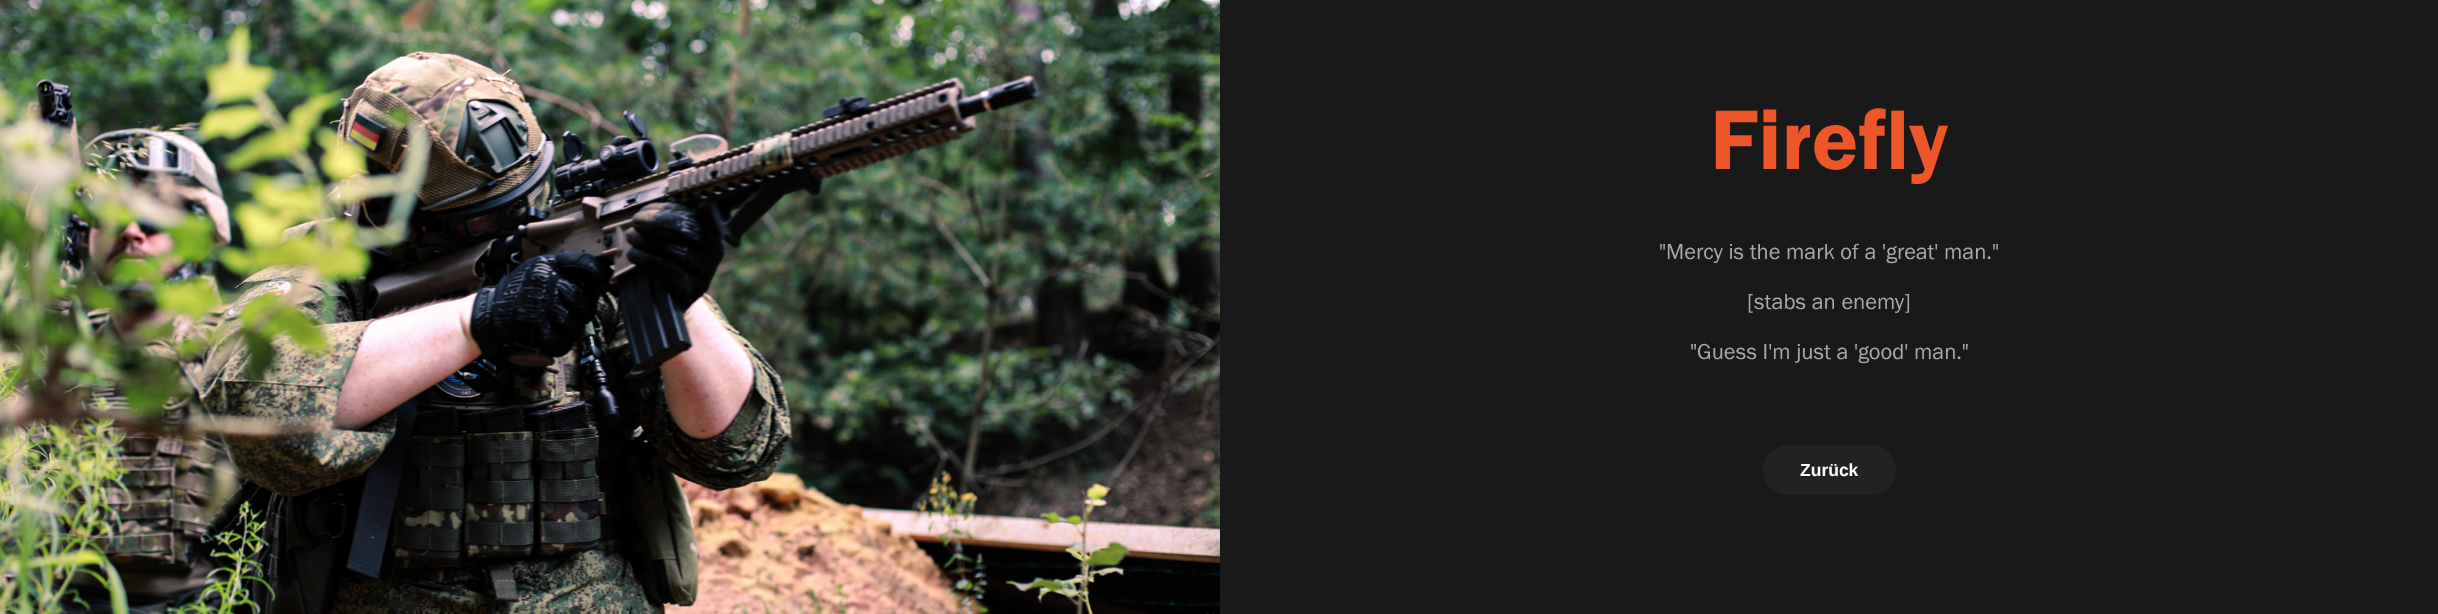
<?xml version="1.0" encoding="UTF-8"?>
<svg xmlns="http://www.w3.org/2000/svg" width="2438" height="614">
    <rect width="100%" height="100%" fill="#191919"/>
    <image x="0" y="0" width="1220" height="614" href="img_01.png"/>
    <text x="1710" y="169" font-family="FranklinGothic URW" font-size="87.5" font-weight="600" fill="#ED5629">Firefly</text>
    <text x="1659" y="259" font-family="FranklinGothic URW" font-size="22.5" fill="#A9A9A9">"Mercy is the mark of a 'great' man."</text>
    <text x="1747" y="309" font-family="FranklinGothic URW" font-size="22.5" fill="#A9A9A9">[stabs an enemy]</text>
    <text x="1690" y="359" font-family="FranklinGothic URW" font-size="22.5" fill="#A9A9A9">"Guess I'm just a 'good' man."</text>
    <rect x="1763" y="445" width="133" height="50" rx="25" fill="#222222"/>
    <text x="1800" y="476" font-family="Liberation Sans" font-size="17.5" font-weight="700" fill="#FFFFFF">Zurück</text>
</svg>
